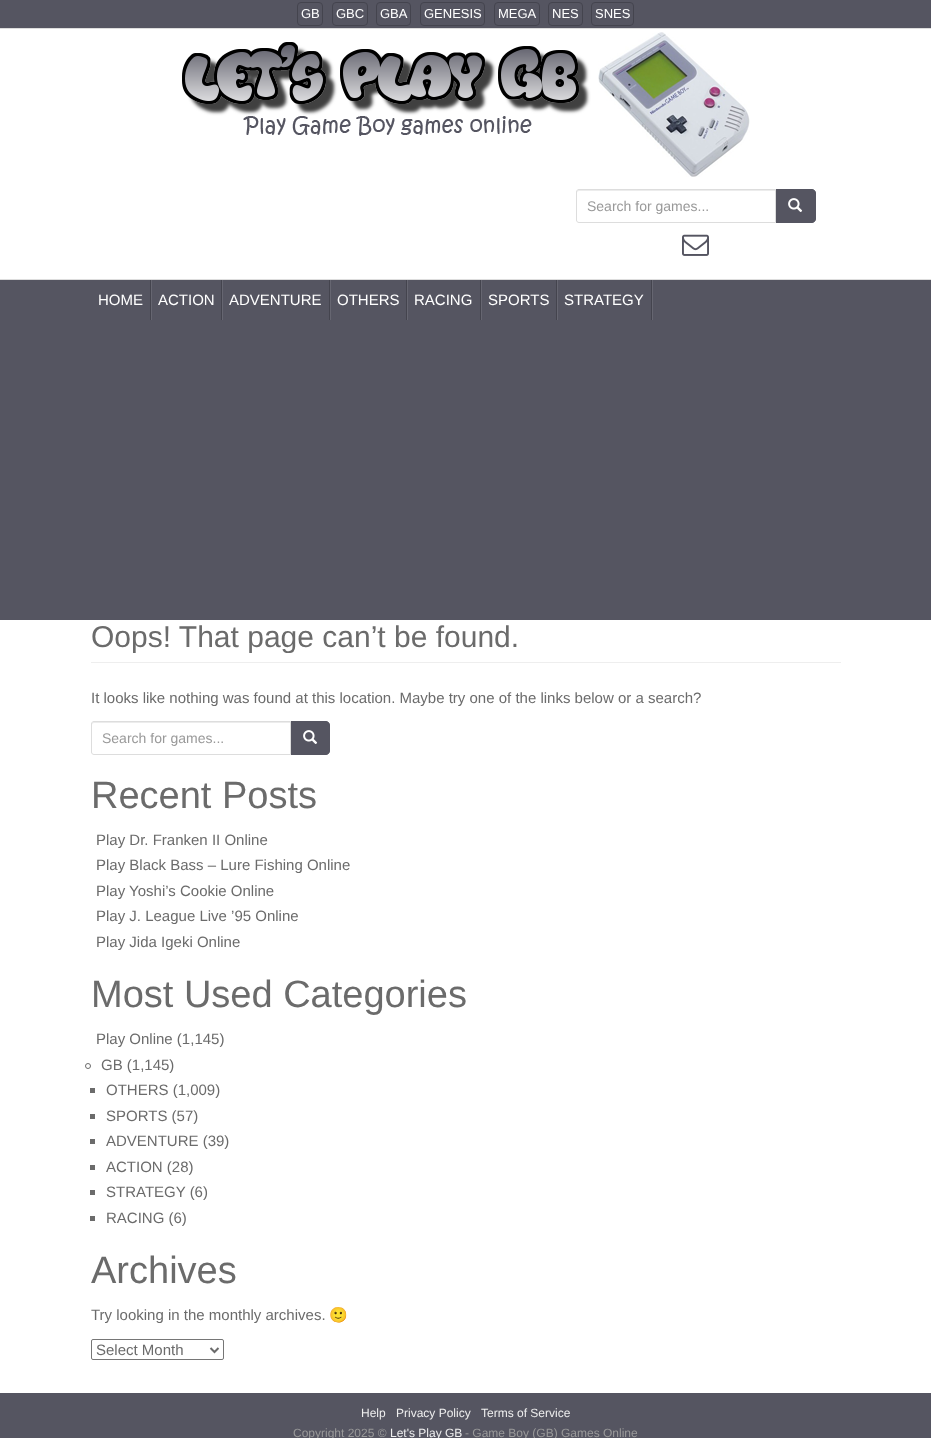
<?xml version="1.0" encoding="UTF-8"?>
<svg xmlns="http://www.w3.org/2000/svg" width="931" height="1438">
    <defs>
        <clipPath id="clip1"><rect x="91" y="620" width="750" height="33"/></clipPath>
    </defs>
    <rect width="100%" height="100%" fill="#FFFFFF"/>
    <rect x="0" y="0" width="931" height="28" fill="#555561"/>
    <rect x="0" y="28" width="931" height="1" fill="#DDDDDD"/>
    <rect x="297.5" y="2.5" width="25" height="23" rx="3.5" fill="none" stroke="#44444E"/>
    <text x="301" y="18" font-family="Liberation Sans" font-size="13" fill="#FFFFFF">GB</text>
    <rect x="332.5" y="2.5" width="35" height="23" rx="3.5" fill="none" stroke="#44444E"/>
    <text x="336" y="18" font-family="Liberation Sans" font-size="13" fill="#FFFFFF">GBC</text>
    <rect x="376.5" y="2.5" width="34" height="23" rx="3.5" fill="none" stroke="#44444E"/>
    <text x="380" y="18" font-family="Liberation Sans" font-size="13" fill="#FFFFFF">GBA</text>
    <rect x="420.5" y="2.5" width="64" height="23" rx="3.5" fill="none" stroke="#44444E"/>
    <text x="424" y="18" font-family="Liberation Sans" font-size="13" fill="#FFFFFF">GENESIS</text>
    <rect x="494.5" y="2.5" width="45" height="23" rx="3.5" fill="none" stroke="#44444E"/>
    <text x="498" y="18" font-family="Liberation Sans" font-size="13" fill="#FFFFFF">MEGA</text>
    <rect x="548.5" y="2.5" width="34" height="23" rx="3.5" fill="none" stroke="#44444E"/>
    <text x="552" y="18" font-family="Liberation Sans" font-size="13" fill="#FFFFFF">NES</text>
    <rect x="591.5" y="2.5" width="42" height="23" rx="3.5" fill="none" stroke="#44444E"/>
    <text x="595" y="18" font-family="Liberation Sans" font-size="13" fill="#FFFFFF">SNES</text>
    <image x="182" y="32" width="568" height="145" href="img_01.png"/>
    <path d="M 775.5 189.5 H 812 C 814 189.5 815.5 191 815.5 193 V 219 C 815.5 221 814 222.5 812 222.5 H 775.5 Z" fill="#555561" stroke="#555561"/>
    <path d="M 579 189 H 776 V 223 H 579 C 577.5 223 576 221.5 576 220 V 192 C 576 190.5 577.5 189 579 189 Z" fill="#FFFFFF"/>
    <path d="M 579 191 H 775 V 190 H 579 C 577 190 577 192 577 193 C 577 192 578 191 579 191 Z" fill="#ECECEC"/>
    <path d="M 579 189.5 H 775.5 V 222.5 H 579 C 577.5 222.5 576.5 221.5 576.5 220 V 192 C 576.5 190.5 577.5 189.5 579 189.5 Z" fill="none" stroke="#DDDDDD"/>
    <text x="587" y="211" font-family="Liberation Sans" font-size="14" fill="#999999">Search for games...</text>
    <image x="788" y="198" width="15" height="14" href="img_02.png"/>
    <image x="682" y="234" width="27" height="22" href="img_03.png"/>
    <rect x="0" y="280" width="931" height="340" fill="#555561"/>
    <rect x="0" y="279" width="931" height="1" fill="#DDDDDD"/>
    <rect x="151" y="280" width="1" height="40" fill="#666671"/>
    <rect x="150" y="280" width="1" height="40" fill="#44444E"/>
    <text x="98" y="305" font-family="Liberation Sans" font-size="15" fill="#FFFFFF">HOME</text>
    <rect x="222" y="280" width="1" height="40" fill="#666671"/>
    <rect x="221" y="280" width="1" height="40" fill="#44444E"/>
    <text x="158" y="305" font-family="Liberation Sans" font-size="15" fill="#FFFFFF">ACTION</text>
    <rect x="330" y="280" width="1" height="40" fill="#666671"/>
    <rect x="329" y="280" width="1" height="40" fill="#44444E"/>
    <text x="229" y="305" font-family="Liberation Sans" font-size="15" fill="#FFFFFF">ADVENTURE</text>
    <rect x="407" y="280" width="1" height="40" fill="#666671"/>
    <rect x="406" y="280" width="1" height="40" fill="#44444E"/>
    <text x="337" y="305" font-family="Liberation Sans" font-size="15" fill="#FFFFFF">OTHERS</text>
    <rect x="481" y="280" width="1" height="40" fill="#666671"/>
    <rect x="480" y="280" width="1" height="40" fill="#44444E"/>
    <text x="414" y="305" font-family="Liberation Sans" font-size="15" fill="#FFFFFF">RACING</text>
    <rect x="557" y="280" width="1" height="40" fill="#666671"/>
    <rect x="556" y="280" width="1" height="40" fill="#44444E"/>
    <text x="488" y="305" font-family="Liberation Sans" font-size="15" fill="#FFFFFF">SPORTS</text>
    <rect x="652" y="280" width="1" height="40" fill="#666671"/>
    <rect x="651" y="280" width="1" height="40" fill="#44444E"/>
    <text x="564" y="305" font-family="Liberation Sans" font-size="15" fill="#FFFFFF">STRATEGY</text>
    <rect x="91" y="662" width="750" height="1" fill="#EEEEEE"/>
    <g clip-path="url(#clip1)">
        <text x="91" y="647" font-family="Liberation Sans" font-size="30" fill="#6B6B6B">Oops! That page can’t be found.</text>
    </g>
    <text x="91" y="703" font-family="Liberation Sans" font-size="15" fill="#6B6B6B">It looks like nothing was found at this location. Maybe try one of the links below or a search?</text>
    <path d="M 290.5 721.5 H 326 C 328 721.5 329.5 723 329.5 725 V 751 C 329.5 753 328 754.5 326 754.5 H 290.5 Z" fill="#555561" stroke="#555561"/>
    <path d="M 94 721 H 291 V 755 H 94 C 92.5 755 91 753.5 91 752 V 724 C 91 722.5 92.5 721 94 721 Z" fill="#FFFFFF"/>
    <path d="M 94 723 H 290 V 722 H 94 C 92 722 92 724 92 725 C 92 724 93 723 94 723 Z" fill="#ECECEC"/>
    <path d="M 94 721.5 H 290.5 V 754.5 H 94 C 92.5 754.5 91.5 753.5 91.5 752 V 724 C 91.5 722.5 92.5 721.5 94 721.5 Z" fill="none" stroke="#DDDDDD"/>
    <text x="102" y="743" font-family="Liberation Sans" font-size="14" fill="#999999">Search for games...</text>
    <image x="303" y="730" width="15" height="14" href="img_02.png"/>
    <text x="91" y="808" font-family="Liberation Sans" font-size="38" fill="#6B6B6B">Recent Posts</text>
    <text font-family="Liberation Sans" font-size="15" fill="#6B6B6B">
        <tspan x="96" y="845">Play Dr. Franken II Online</tspan>
        <tspan x="96" y="870">Play Black Bass – Lure Fishing Online</tspan>
        <tspan x="96" y="896">Play Yoshi’s Cookie Online</tspan>
        <tspan x="96" y="921">Play J. League Live ’95 Online</tspan>
        <tspan x="96" y="947">Play Jida Igeki Online</tspan>
    </text>
    <text x="91" y="1007" font-family="Liberation Sans" font-size="38" fill="#6B6B6B">Most Used Categories</text>
    <text x="96" y="1044" font-family="Liberation Sans" font-size="15" fill="#6B6B6B">Play Online (1,145)</text>
    <circle cx="88" cy="1066" r="2.5" fill="none" stroke="#6B6B6B"/>
    <text x="101" y="1070" font-family="Liberation Sans" font-size="15" fill="#6B6B6B">GB (1,145)</text>
    <rect x="90" y="1088" width="5" height="5" fill="#6B6B6B"/>
    <text x="106" y="1095" font-family="Liberation Sans" font-size="15" fill="#6B6B6B">OTHERS (1,009)</text>
    <rect x="90" y="1114" width="5" height="5" fill="#6B6B6B"/>
    <text x="106" y="1121" font-family="Liberation Sans" font-size="15" fill="#6B6B6B">SPORTS (57)</text>
    <rect x="90" y="1139" width="5" height="5" fill="#6B6B6B"/>
    <text x="106" y="1146" font-family="Liberation Sans" font-size="15" fill="#6B6B6B">ADVENTURE (39)</text>
    <rect x="90" y="1165" width="5" height="5" fill="#6B6B6B"/>
    <text x="106" y="1172" font-family="Liberation Sans" font-size="15" fill="#6B6B6B">ACTION (28)</text>
    <rect x="90" y="1190" width="5" height="5" fill="#6B6B6B"/>
    <text x="106" y="1197" font-family="Liberation Sans" font-size="15" fill="#6B6B6B">STRATEGY (6)</text>
    <rect x="90" y="1216" width="5" height="5" fill="#6B6B6B"/>
    <text x="106" y="1223" font-family="Liberation Sans" font-size="15" fill="#6B6B6B">RACING (6)</text>
    <text x="91" y="1283" font-family="Liberation Sans" font-size="38" fill="#6B6B6B">Archives</text>
    <text x="91" y="1320" font-family="Liberation Sans" font-size="15" fill="#6B6B6B">Try looking in the monthly archives.</text>
    <text x="329" y="1320" font-family="Noto Color Emoji" font-size="15" fill="#6B6B6B">🙂</text>
    <rect x="91.5" y="1339.5" width="132" height="20" rx="1.5" fill="none" stroke="#767676"/>
    <path d="M 210.5 1348 L 214.5 1352 L 218.5 1348" fill="none" stroke="#6B6B6B" stroke-width="2"/>
    <text x="96" y="1355" font-family="Liberation Sans" font-size="15" fill="#6B6B6B">Select Month</text>
    <rect x="0" y="1393" width="931" height="45" fill="#555561"/>
    <text x="361" y="1417" font-family="Liberation Sans" font-size="12" fill="#EEEEEE">Help</text>
    <text x="396" y="1417" font-family="Liberation Sans" font-size="12" fill="#EEEEEE">Privacy Policy</text>
    <text x="481" y="1417" font-family="Liberation Sans" font-size="12" fill="#EEEEEE">Terms of Service</text>
    <text x="293" y="1437" font-family="Liberation Sans" font-size="12" fill="#999999">Copyright 2025 ©</text>
    <text x="390" y="1437" font-family="Liberation Sans" font-size="12" fill="#EEEEEE">Let's Play GB</text>
    <text x="465" y="1437" font-family="Liberation Sans" font-size="12" fill="#999999">- Game Boy (GB) Games Online</text>
</svg>
